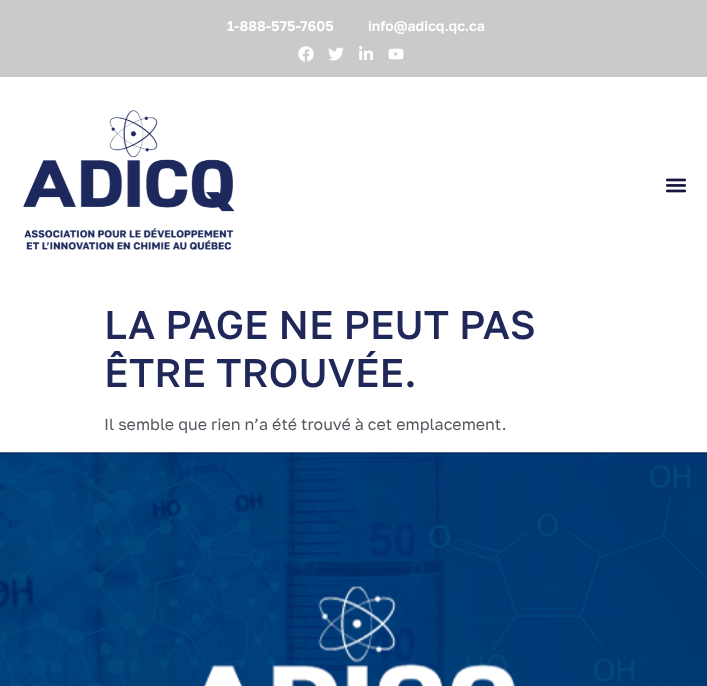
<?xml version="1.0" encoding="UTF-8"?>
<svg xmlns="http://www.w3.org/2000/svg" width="707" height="686">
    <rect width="100%" height="100%" fill="#FFFFFF"/>
    <rect x="0" y="0" width="707" height="77" fill="#CACACA"/>
    <text x="227" y="31" font-family="Golos Text" font-size="14" font-weight="600" fill="#FFFFFF">1-888-575-7605</text>
    <text x="368" y="31" font-family="Golos Text" font-size="14" font-weight="600" fill="#FFFFFF">info@adicq.qc.ca</text>
    <image x="298" y="46" width="16" height="16" href="img_01.png"/>
    <image x="328" y="47" width="16" height="14" href="img_02.png"/>
    <image x="359" y="46" width="14" height="14" href="img_03.png"/>
    <image x="388" y="48" width="16" height="12" href="img_04.png"/>
    <image x="23" y="110" width="212" height="140" href="img_05.png"/>
    <image x="665" y="178" width="22" height="15" href="img_06.png"/>
    <text font-family="Golos Text" font-size="40" font-weight="500" fill="#1F2858">
        <tspan x="104" y="339">LA PAGE NE PEUT PAS</tspan>
        <tspan x="104" y="387">ÊTRE TROUVÉE.</tspan>
    </text>
    <text x="104" y="430" font-family="Golos Text" font-size="16" fill="#54595F">Il semble que rien n’a été trouvé à cet emplacement.</text>
    <image x="0" y="451" width="707" height="235" href="img_07.png"/>
    <image x="204" y="586" width="311" height="100" href="img_08.png"/>
</svg>
